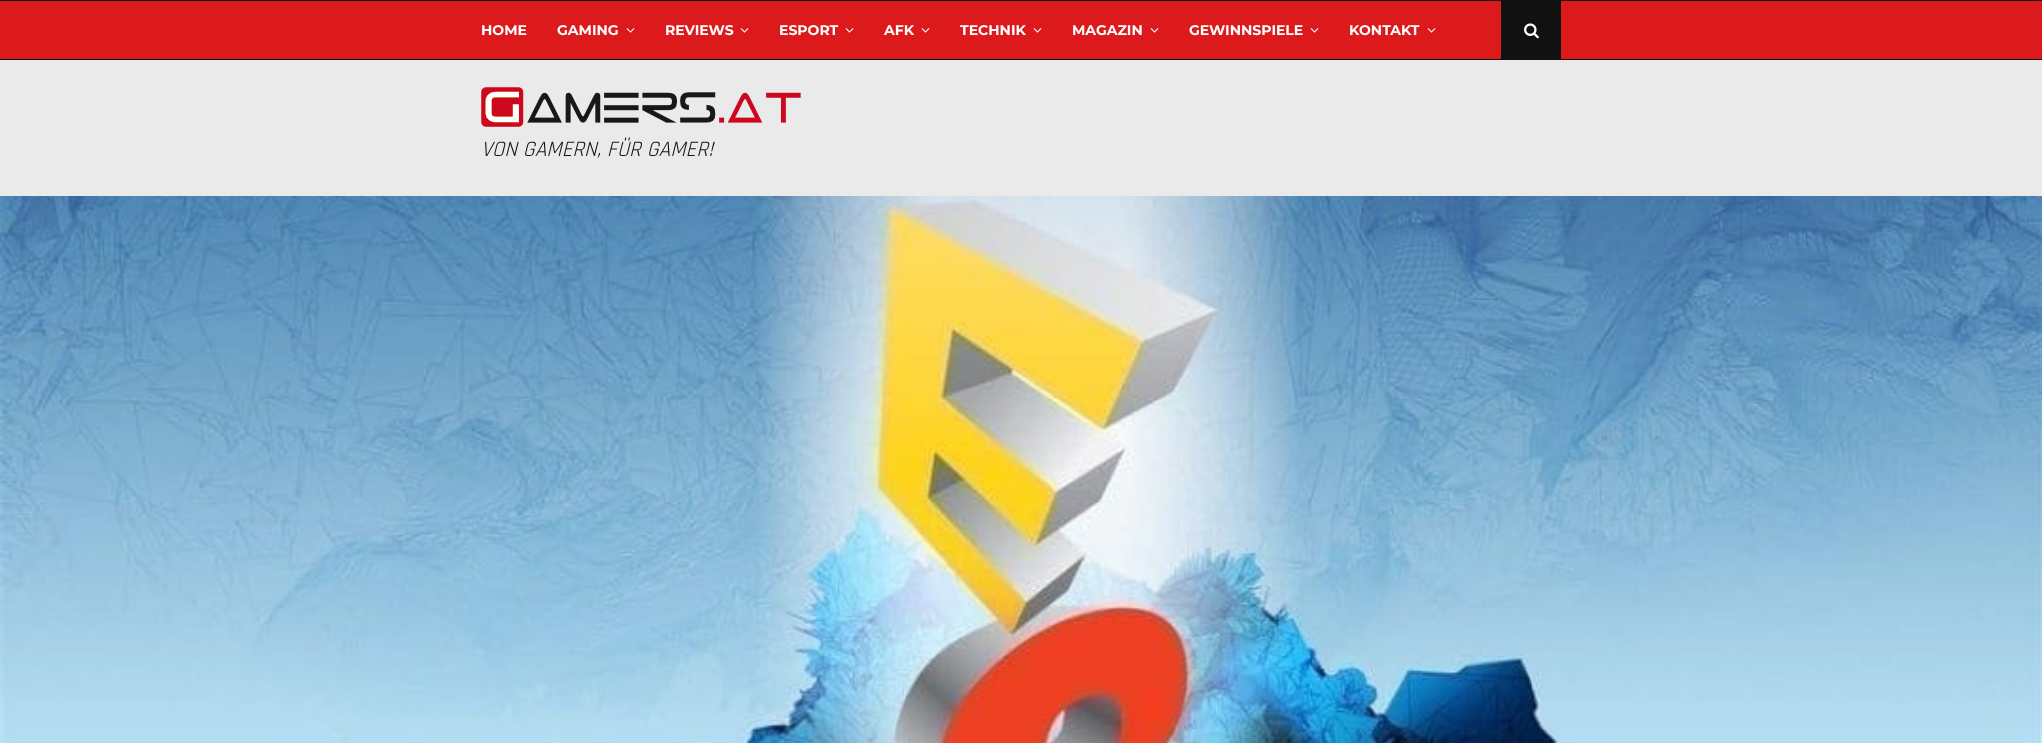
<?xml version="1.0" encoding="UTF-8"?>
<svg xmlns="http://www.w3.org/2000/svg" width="2042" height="743">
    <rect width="100%" height="100%" fill="#EAEAEA"/>
    <rect x="0" y="1" width="2042" height="58" fill="#DC191B"/>
    <rect x="0" y="59" width="2042" height="1" fill="#111111"/>
    <rect x="0" y="0" width="2042" height="1" fill="#111111"/>
    <text x="481" y="35" font-family="Montserrat" font-size="14" font-weight="700" fill="#FFFFFF">HOME</text>
    <text x="557" y="35" font-family="Montserrat" font-size="14" font-weight="700" fill="#FFFFFF">GAMING</text>
    <image x="626" y="28" width="9" height="5" href="img_01.png"/>
    <text x="665" y="35" font-family="Montserrat" font-size="14" font-weight="700" fill="#FFFFFF">REVIEWS</text>
    <image x="740" y="28" width="9" height="5" href="img_01.png"/>
    <text x="779" y="35" font-family="Montserrat" font-size="14" font-weight="700" fill="#FFFFFF">ESPORT</text>
    <image x="845" y="28" width="9" height="5" href="img_01.png"/>
    <text x="884" y="35" font-family="Montserrat" font-size="14" font-weight="700" fill="#FFFFFF">AFK</text>
    <image x="921" y="28" width="9" height="5" href="img_01.png"/>
    <text x="960" y="35" font-family="Montserrat" font-size="14" font-weight="700" fill="#FFFFFF">TECHNIK</text>
    <image x="1033" y="28" width="9" height="5" href="img_01.png"/>
    <text x="1072" y="35" font-family="Montserrat" font-size="14" font-weight="700" fill="#FFFFFF">MAGAZIN</text>
    <image x="1150" y="28" width="9" height="5" href="img_01.png"/>
    <text x="1189" y="35" font-family="Montserrat" font-size="14" font-weight="700" fill="#FFFFFF">GEWINNSPIELE</text>
    <image x="1310" y="28" width="9" height="5" href="img_01.png"/>
    <text x="1349" y="35" font-family="Montserrat" font-size="14" font-weight="700" fill="#FFFFFF">KONTAKT</text>
    <image x="1427" y="28" width="9" height="5" href="img_01.png"/>
    <rect x="1501" y="1" width="60" height="58" fill="#111111"/>
    <image x="1524" y="23" width="15" height="16" href="img_02.png"/>
    <image x="481" y="87" width="320" height="40" href="img_03.png"/>
    <text x="481" y="156" font-family="Rajdhani" font-size="22" font-style="italic" fill="#111111">VON GAMERN, FÜR GAMER!</text>
    <image x="0" y="196" width="2042" height="547" href="img_04.png"/>
</svg>
